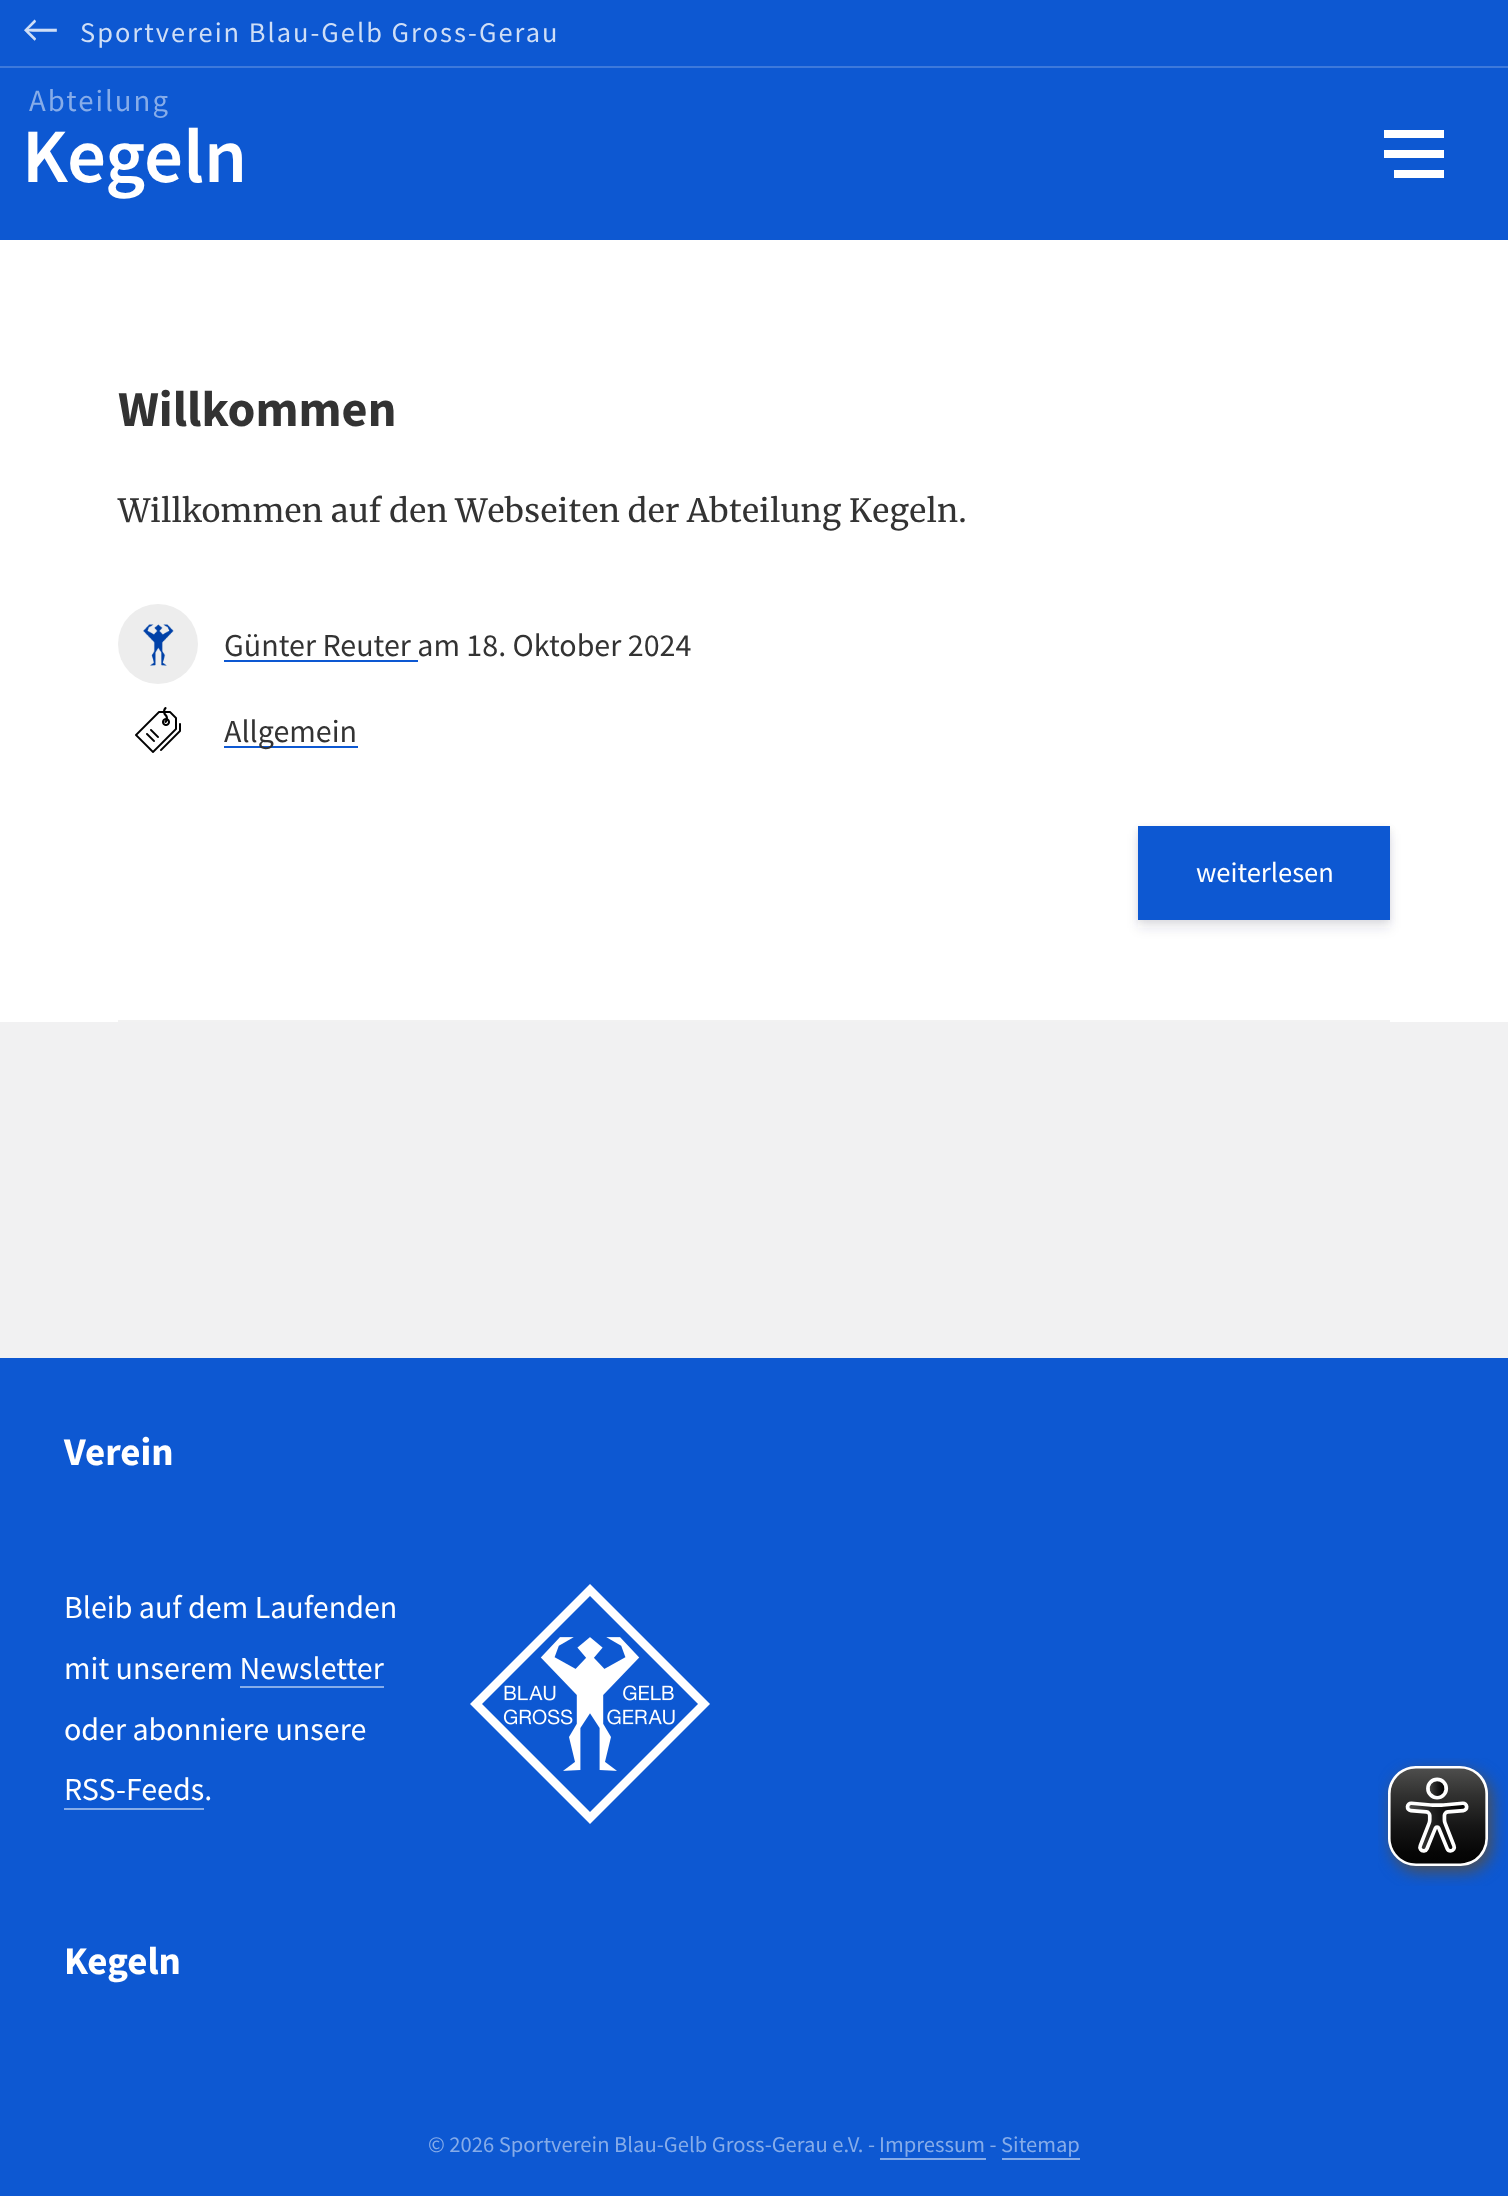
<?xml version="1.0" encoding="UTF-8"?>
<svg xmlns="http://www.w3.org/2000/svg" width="1508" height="2196">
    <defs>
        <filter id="blur1" x="-50%" y="-200%" width="200%" height="500%"><feGaussianBlur stdDeviation="3"/></filter>
        <filter id="blur2" x="-50%" y="-200%" width="200%" height="500%"><feGaussianBlur stdDeviation="6"/></filter>
    </defs>
    <rect width="100%" height="100%" fill="#0D58D2"/>
    <rect x="0" y="66" width="1508" height="2" fill="#3D79DB"/>
    <text x="22" y="42" font-family="Lato" font-size="37" letter-spacing="2" fill="#CFDEF6">←</text>
    <text x="80" y="42" font-family="Source Sans Pro" font-size="28.4" letter-spacing="2" fill="#CFDEF6">Sportverein Blau-Gelb Gross-Gerau</text>
    <text x="29" y="111" font-family="Source Sans Pro" font-size="30.75" letter-spacing="2" fill="#86ACE9">Abteilung</text>
    <text x="22" y="182" font-family="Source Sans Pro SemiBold" font-size="77" font-weight="600" fill="#FFFFFF">Kegeln</text>
    <rect x="1384" y="130" width="60" height="8" fill="#FFFFFF"/>
    <rect x="1384" y="150" width="60" height="8" fill="#FFFFFF"/>
    <rect x="1394" y="170" width="50" height="8" fill="#FFFFFF"/>
    <rect x="0" y="1022" width="1508" height="336" fill="#F1F1F2"/>
    <rect x="0" y="240" width="1508" height="782" fill="#FFFFFF"/>
    <rect x="118" y="1020" width="1272" height="2" fill="#F2F2F2"/>
    <text x="118" y="426" font-family="Source Sans Pro" font-size="50.25" font-weight="700" fill="#333333">Willkommen</text>
    <text x="118" y="522" font-family="Merriweather" font-size="32" fill="#333333">Willkommen auf den Webseiten der Abteilung Kegeln.</text>
    <circle cx="158" cy="644" r="40" fill="#EDEDED"/>
    <image x="143" y="624" width="31" height="42" href="img_01.png"/>
    <text x="224" y="656" font-family="Source Sans Pro" font-size="32" fill="#333333">Günter Reuter am 18. Oktober 2024</text>
    <rect x="224" y="660" width="194" height="2" fill="#0D58D2"/>
    <image x="135" y="707" width="46" height="46" href="img_02.png"/>
    <rect x="224" y="746" width="134" height="2" fill="#0D58D2"/>
    <text x="224" y="742" font-family="Source Sans Pro" font-size="32" fill="#333333">Allgemein</text>
    <rect x="1138" y="828" width="252" height="94" fill="#000000" fill-opacity="0.08" filter="url(#blur1)"/>
    <rect x="1138" y="834" width="252" height="94" fill="#32325D" fill-opacity="0.11" filter="url(#blur2)"/>
    <rect x="1138" y="826" width="252" height="94" fill="#0D58D2"/>
    <text x="1196" y="882" font-family="Source Sans Pro" font-size="28.5" fill="#FFFFFF">weiterlesen</text>
    <text x="64" y="1465" font-family="Source Sans Pro" font-size="39" font-weight="700" fill="#FFFFFF">Verein</text>
    <text font-family="Source Sans Pro" font-size="32" fill="#FFFFFF">
        <tspan x="64" y="1618">Bleib auf dem Laufenden</tspan>
        <tspan x="64" y="1679">mit unserem Newsletter</tspan>
    </text>
    <rect x="240" y="1686" width="144" height="2" fill="#86ACE9"/>
    <text font-family="Source Sans Pro" font-size="32" fill="#FFFFFF">
        <tspan x="64" y="1740">oder abonniere unsere</tspan>
        <tspan x="64" y="1800">RSS-Feeds.</tspan>
    </text>
    <rect x="64" y="1808" width="140" height="2" fill="#86ACE9"/>
    <image x="470" y="1584" width="240" height="240" href="img_03.png"/>
    <text x="64" y="1974" font-family="Source Sans Pro" font-size="39" font-weight="700" fill="#FFFFFF">Kegeln</text>
    <text x="428" y="2152" font-family="Source Sans Pro" font-size="22.6" fill="#86ACE9">© 2026 Sportverein Blau-Gelb Gross-Gerau e.V. -</text>
    <text x="879" y="2152" font-family="Source Sans Pro" font-size="22.6" fill="#86ACE9">Impressum - Sitemap</text>
    <rect x="880" y="2158" width="106" height="2" fill="#86ACE9"/>
    <rect x="1002" y="2158" width="78" height="2" fill="#86ACE9"/>
    <image x="1378" y="1758" width="128" height="128" href="img_04.png"/>
</svg>
